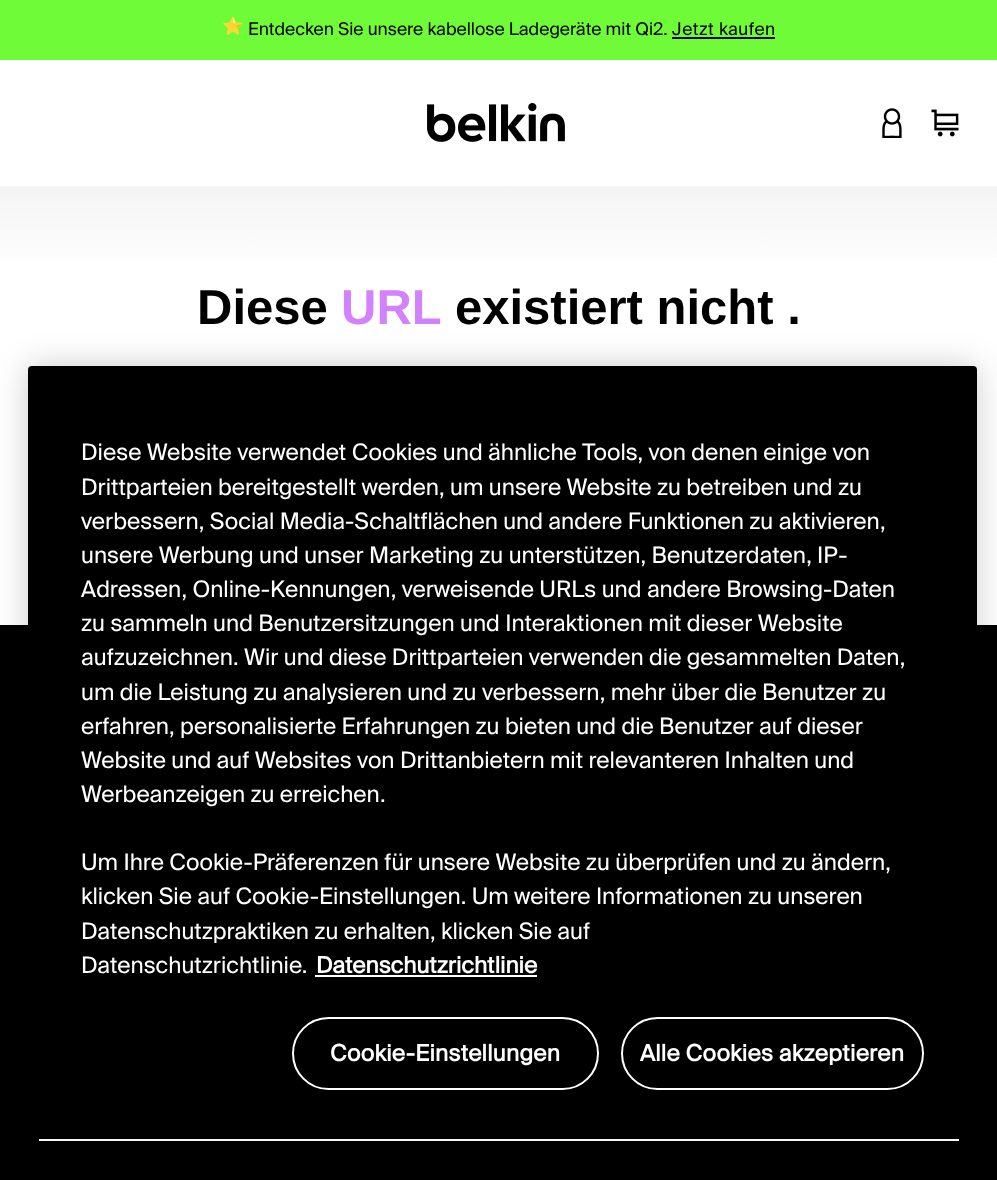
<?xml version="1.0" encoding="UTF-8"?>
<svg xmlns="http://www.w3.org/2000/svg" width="997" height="1180">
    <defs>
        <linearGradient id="g1" gradientUnits="userSpaceOnUse" x1="499" y1="185" x2="499" y2="280"><stop offset="0" stop-color="#F4F4F4"/><stop offset="1" stop-color="#FFFFFF"/></linearGradient>
        <filter id="blur1" x="-50%" y="-200%" width="200%" height="500%"><feGaussianBlur stdDeviation="16"/></filter>
    </defs>
    <rect width="100%" height="100%" fill="#FFFFFF"/>
    <rect x="0" y="0" width="997" height="60" fill="#6FFB38"/>
    <text x="222" y="32" font-family="Noto Color Emoji" font-size="17.5" fill="#000000">⭐</text>
    <text x="248" y="35" font-family="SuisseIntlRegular" font-size="17.5" fill="#000000">Entdecken Sie unsere kabellose Ladegeräte mit Qi2.</text>
    <text x="672" y="35" font-family="SuisseIntlRegular" font-size="17.5" letter-spacing="0.5" fill="#000000">Jetzt kaufen</text>
    <rect x="672" y="37" width="103" height="2" fill="#000000"/>
    <image x="427" y="103" width="138" height="39" href="img_01.png"/>
    <image x="882" y="108" width="20" height="30" href="img_02.png"/>
    <image x="931" y="109" width="28" height="28" href="img_03.png"/>
    <rect x="0" y="186" width="997" height="72" fill="url(#g1)"/>
    <text x="197" y="324" font-family="Liberation Sans" font-size="49" font-weight="700" fill="#000000">Diese</text>
    <text x="341" y="324" font-family="Liberation Sans" font-size="49" font-weight="700" fill="#D382FF">URL</text>
    <text x="455" y="324" font-family="Liberation Sans" font-size="49" font-weight="700" fill="#000000">existiert nicht .</text>
    <rect x="0" y="625" width="997" height="555" fill="#000000"/>
    <rect x="39" y="1139" width="920" height="2" fill="#FFFFFF"/>
    <rect x="28" y="366" width="949" height="759" rx="4" fill="#000000" fill-opacity="0.2" filter="url(#blur1)"/>
    <rect x="28" y="366" width="949" height="759" rx="4" fill="#000000"/>
    <text font-family="SuisseIntlRegular" font-size="22.75" fill="#FFFFFF">
        <tspan x="81" y="460">Diese Website verwendet Cookies und ähnliche Tools, von denen einige von</tspan>
        <tspan x="81" y="495">Drittparteien bereitgestellt werden, um unsere Website zu betreiben und zu</tspan>
        <tspan x="81" y="529">verbessern, Social Media-Schaltflächen und andere Funktionen zu aktivieren,</tspan>
        <tspan x="81" y="563">unsere Werbung und unser Marketing zu unterstützen, Benutzerdaten, IP-</tspan>
        <tspan x="81" y="597">Adressen, Online-Kennungen, verweisende URLs und andere Browsing-Daten</tspan>
        <tspan x="81" y="631">zu sammeln und Benutzersitzungen und Interaktionen mit dieser Website</tspan>
        <tspan x="81" y="665">aufzuzeichnen. Wir und diese Drittparteien verwenden die gesammelten Daten,</tspan>
        <tspan x="81" y="700">um die Leistung zu analysieren und zu verbessern, mehr über die Benutzer zu</tspan>
        <tspan x="81" y="734">erfahren, personalisierte Erfahrungen zu bieten und die Benutzer auf dieser</tspan>
        <tspan x="81" y="768">Website und auf Websites von Drittanbietern mit relevanteren Inhalten und</tspan>
        <tspan x="81" y="802">Werbeanzeigen zu erreichen.</tspan>
    </text>
    <text font-family="SuisseIntlRegular" font-size="22.75" fill="#FFFFFF">
        <tspan x="81" y="870">Um Ihre Cookie-Präferenzen für unsere Website zu überprüfen und zu ändern,</tspan>
        <tspan x="81" y="904">klicken Sie auf Cookie-Einstellungen. Um weitere Informationen zu unseren</tspan>
        <tspan x="81" y="939">Datenschutzpraktiken zu erhalten, klicken Sie auf</tspan>
        <tspan x="81" y="973">Datenschutzrichtlinie.</tspan>
    </text>
    <text x="316" y="973" font-family="SuisseIntlRegular" font-size="22.75" font-weight="700" fill="#FFFFFF">Datenschutzrichtlinie</text>
    <rect x="315" y="975" width="222" height="2" fill="#FFFFFF"/>
    <rect x="293" y="1018" width="305" height="71" rx="35.5" fill="none" stroke="#FFFFFF" stroke-width="2"/>
    <text x="330" y="1061" font-family="SuisseIntlRegular" font-size="22.75" font-weight="700" letter-spacing="0.25" fill="#FFFFFF">Cookie-Einstellungen</text>
    <rect x="622" y="1018" width="301" height="71" rx="35.5" fill="none" stroke="#FFFFFF" stroke-width="2"/>
    <text x="640" y="1061" font-family="SuisseIntlRegular" font-size="22.75" font-weight="700" letter-spacing="0.25" fill="#FFFFFF">Alle Cookies akzeptieren</text>
</svg>
